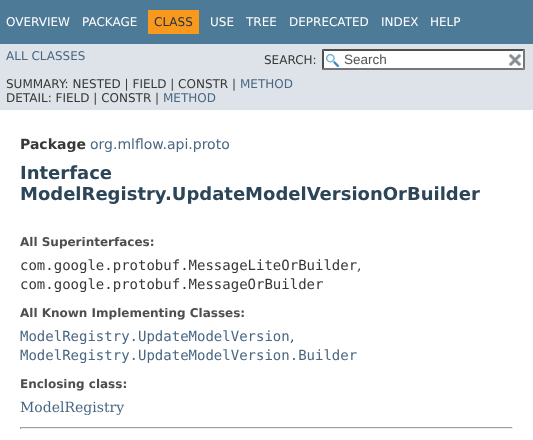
<?xml version="1.0" encoding="UTF-8"?>
<svg xmlns="http://www.w3.org/2000/svg" width="533" height="440">
    <rect width="100%" height="100%" fill="#FFFFFF"/>
    <rect x="0" y="0" width="533" height="44" fill="#4D7A97"/>
    <text x="6" y="26" font-family="DejaVu Sans" font-size="12" fill="#FFFFFF">OVERVIEW</text>
    <text x="82" y="26" font-family="DejaVu Sans" font-size="12" fill="#FFFFFF">PACKAGE</text>
    <rect x="148" y="10" width="51" height="24" fill="#F8981D"/>
    <text x="154" y="26" font-family="DejaVu Sans" font-size="12" fill="#253441">CLASS</text>
    <text x="210" y="26" font-family="DejaVu Sans" font-size="12" fill="#FFFFFF">USE</text>
    <text x="246" y="26" font-family="DejaVu Sans" font-size="12" fill="#FFFFFF">TREE</text>
    <text x="289" y="26" font-family="DejaVu Sans" font-size="12" fill="#FFFFFF">DEPRECATED</text>
    <text x="381" y="26" font-family="DejaVu Sans" font-size="12" fill="#FFFFFF">INDEX</text>
    <text x="430" y="26" font-family="DejaVu Sans" font-size="12" fill="#FFFFFF">HELP</text>
    <rect x="0" y="44" width="533" height="66" fill="#DEE3E9"/>
    <text x="6" y="60" font-family="DejaVu Sans" font-size="12" fill="#4A6782">ALL CLASSES</text>
    <text x="264" y="64" font-family="DejaVu Sans" font-size="12" fill="#353833">SEARCH:</text>
    <rect x="322" y="49" width="203" height="21" fill="#FFFFFF"/>
    <image x="326" y="54" width="13" height="13" href="img_01.png"/>
    <path d="M 322 49 H 525 L 523 51 H 324 Z" fill="#4F4F4F"/>
    <path d="M 525 49 V 70 L 523 68 V 51 Z" fill="#767676"/>
    <path d="M 525 70 H 322 L 324 68 H 523 Z" fill="#767676"/>
    <path d="M 322 70 V 49 L 324 51 V 68 Z" fill="#4F4F4F"/>
    <text x="344" y="64" font-family="Liberation Sans" font-size="13.5" fill="#545454">Search</text>
    <image x="508" y="54" width="14" height="12" href="img_02.png"/>
    <text x="6" y="88" font-family="DejaVu Sans" font-size="12" fill="#353833">SUMMARY: NESTED | FIELD | CONSTR |</text>
    <text x="240" y="88" font-family="DejaVu Sans" font-size="12" fill="#4A6782">METHOD</text>
    <text x="6" y="102" font-family="DejaVu Sans" font-size="12" fill="#353833">DETAIL: FIELD | CONSTR |</text>
    <text x="163" y="102" font-family="DejaVu Sans" font-size="12" fill="#4A6782">METHOD</text>
    <text x="20" y="149" font-family="DejaVu Sans" font-size="14" font-weight="700" fill="#353833">Package</text>
    <text x="90" y="149" font-family="DejaVu Sans" font-size="14" fill="#4A6782">org.mlflow.api.proto</text>
    <text font-family="DejaVu Sans" font-size="18" font-weight="700" fill="#2C4557">
        <tspan x="20" y="179">Interface</tspan>
        <tspan x="20" y="200">ModelRegistry.UpdateModelVersionOrBuilder</tspan>
    </text>
    <text x="20" y="246" font-family="DejaVu Sans" font-size="12" font-weight="700" fill="#4E4E4E">All Superinterfaces:</text>
    <text x="20" y="270" font-family="DejaVu Sans Mono" font-size="14" fill="#353833">com.google.protobuf.MessageLiteOrBuilder</text>
    <text x="357" y="270" font-family="DejaVu Serif" font-size="14" fill="#353833">,</text>
    <text x="20" y="289" font-family="DejaVu Sans Mono" font-size="14" fill="#353833">com.google.protobuf.MessageOrBuilder</text>
    <text x="20" y="317" font-family="DejaVu Sans" font-size="12" font-weight="700" fill="#4E4E4E">All Known Implementing Classes:</text>
    <text x="20" y="341" font-family="DejaVu Sans Mono" font-size="14" fill="#4A6782">ModelRegistry.UpdateModelVersion</text>
    <text x="290" y="341" font-family="DejaVu Serif" font-size="14" fill="#353833">,</text>
    <text x="20" y="360" font-family="DejaVu Sans Mono" font-size="14" fill="#4A6782">ModelRegistry.UpdateModelVersion.Builder</text>
    <text x="20" y="388" font-family="DejaVu Sans" font-size="12" font-weight="700" fill="#4E4E4E">Enclosing class:</text>
    <text x="20" y="412" font-family="DejaVu Serif" font-size="14" fill="#4A6782">ModelRegistry</text>
    <rect x="20" y="427" width="493" height="1" fill="#9F9F9F"/>
    <rect x="512" y="427" width="1" height="2" fill="#EEEEEE"/>
    <rect x="20" y="428" width="493" height="1" fill="#EEEEEE"/>
    <rect x="20" y="427" width="1" height="2" fill="#9F9F9F"/>
</svg>
